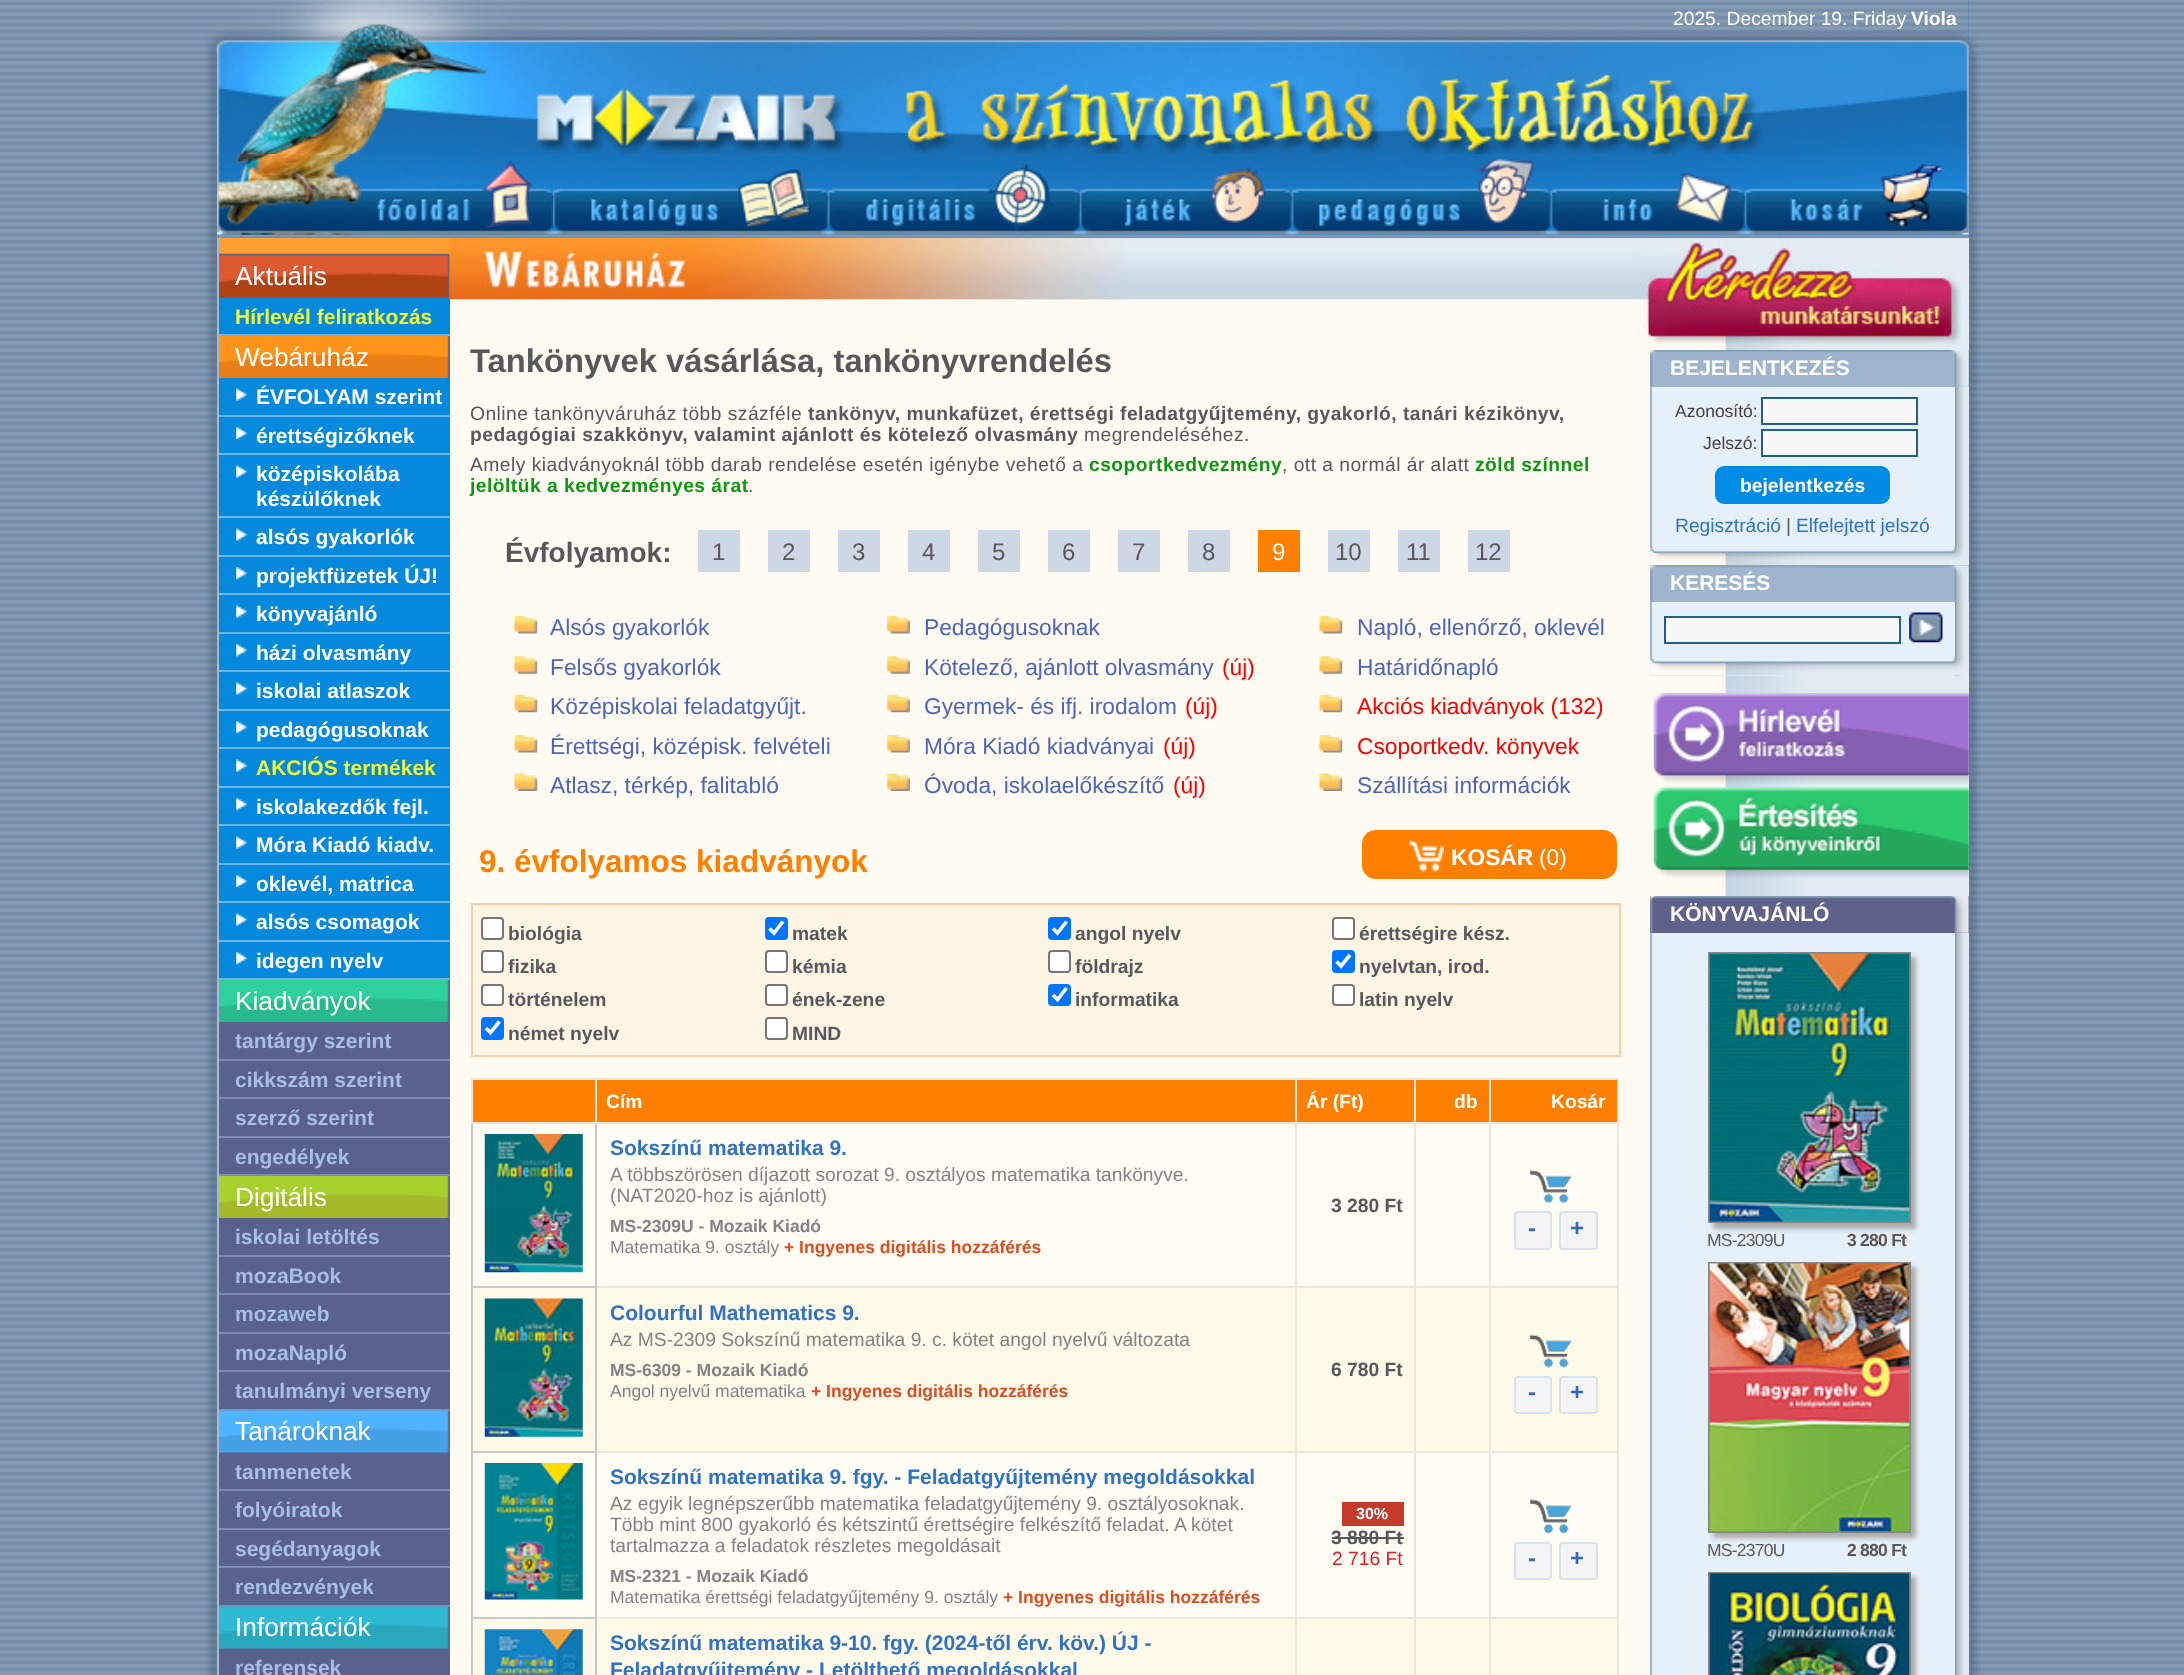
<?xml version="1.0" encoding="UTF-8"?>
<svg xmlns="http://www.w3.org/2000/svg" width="2184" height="1675">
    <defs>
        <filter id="blur1" x="-50%" y="-200%" width="200%" height="500%"><feGaussianBlur stdDeviation="2.5"/></filter>
    </defs>
    <rect width="100%" height="100%" fill="#879DB6"/>
    <image x="0" y="1" width="2184" height="1674" href="img_01.png"/>
    <image x="204" y="54" width="1777" height="1621" href="img_02.png"/>
    <image x="203" y="0" width="1778" height="55" href="img_03.png"/>
    <image x="217" y="235" width="1752" height="3" href="img_04.png"/>
    <rect x="217" y="0" width="1752" height="235" fill="#1979C5"/>
    <image x="217" y="0" width="1752" height="235" href="img_05.png"/>
    <text x="1673" y="25" font-family="Liberation Sans" font-size="19.25" fill="#FFFFFF">2025. December 19. Friday</text>
    <text x="1911" y="25" font-family="Liberation Sans" font-size="19.25" font-weight="700" fill="#FFFFFF">Viola</text>
    <image x="217" y="154" width="336" height="79" href="img_06.png"/>
    <image x="553" y="154" width="275" height="79" href="img_07.png"/>
    <image x="827" y="154" width="253" height="79" href="img_08.png"/>
    <image x="1079" y="154" width="213" height="79" href="img_09.png"/>
    <image x="1291" y="154" width="260" height="79" href="img_10.png"/>
    <image x="1550" y="154" width="195" height="79" href="img_11.png"/>
    <image x="1744" y="154" width="225" height="79" href="img_12.png"/>
    <rect x="450" y="238" width="1519" height="1437" fill="#FFFBF3"/>
    <rect x="219" y="238" width="231" height="1437" fill="#59628D"/>
    <rect x="217" y="238" width="2" height="1437" fill="#A6B9CE"/>
    <image x="219" y="238" width="231" height="60" href="img_13.png"/>
    <text x="235" y="285" font-family="Liberation Sans" font-size="26.25" fill="#FFFFFF">Aktuális</text>
    <rect x="219" y="298" width="231" height="36" fill="#0489DD"/>
    <rect x="219" y="334" width="231" height="2" fill="#6CB5E9"/>
    <text x="235" y="324" font-family="Liberation Sans" font-size="21" font-weight="700" fill="#F0F833">Hírlevél feliratkozás</text>
    <image x="219" y="336" width="230" height="42" href="img_14.png"/>
    <text x="235" y="366" font-family="Liberation Sans" font-size="26.25" fill="#FFFFFF">Webáruház</text>
    <rect x="219" y="378" width="231" height="37" fill="#0489DD"/>
    <image x="236" y="388" width="12" height="13" href="img_15.png"/>
    <rect x="219" y="415" width="231" height="2" fill="#6CB5E9"/>
    <text x="256" y="404" font-family="Liberation Sans" font-size="21" font-weight="700" fill="#FFFFFF">ÉVFOLYAM szerint</text>
    <rect x="219" y="417" width="231" height="36" fill="#0489DD"/>
    <image x="236" y="427" width="12" height="13" href="img_16.png"/>
    <rect x="219" y="453" width="231" height="2" fill="#6CB5E9"/>
    <text x="256" y="443" font-family="Liberation Sans" font-size="21" font-weight="700" fill="#FFFFFF">érettségizőknek</text>
    <rect x="219" y="455" width="231" height="61" fill="#0489DD"/>
    <image x="236" y="465" width="12" height="13" href="img_15.png"/>
    <rect x="219" y="516" width="231" height="2" fill="#6CB5E9"/>
    <text font-family="Liberation Sans" font-size="21" font-weight="700" fill="#FFFFFF">
        <tspan x="256" y="481">középiskolába</tspan>
        <tspan x="256" y="506">készülőknek</tspan>
    </text>
    <rect x="219" y="518" width="231" height="37" fill="#0489DD"/>
    <image x="236" y="528" width="12" height="13" href="img_15.png"/>
    <rect x="219" y="555" width="231" height="2" fill="#6CB5E9"/>
    <text x="256" y="544" font-family="Liberation Sans" font-size="21" font-weight="700" fill="#FFFFFF">alsós gyakorlók</text>
    <rect x="219" y="557" width="231" height="36" fill="#0489DD"/>
    <image x="236" y="567" width="12" height="13" href="img_16.png"/>
    <rect x="219" y="593" width="231" height="2" fill="#6CB5E9"/>
    <text x="256" y="583" font-family="Liberation Sans" font-size="21" font-weight="700" fill="#FFFFFF">projektfüzetek ÚJ!</text>
    <rect x="219" y="595" width="231" height="37" fill="#0489DD"/>
    <image x="236" y="605" width="12" height="13" href="img_15.png"/>
    <rect x="219" y="632" width="231" height="2" fill="#6CB5E9"/>
    <text x="256" y="621" font-family="Liberation Sans" font-size="21" font-weight="700" fill="#FFFFFF">könyvajánló</text>
    <rect x="219" y="634" width="231" height="36" fill="#0489DD"/>
    <image x="236" y="644" width="12" height="13" href="img_16.png"/>
    <rect x="219" y="670" width="231" height="2" fill="#6CB5E9"/>
    <text x="256" y="660" font-family="Liberation Sans" font-size="21" font-weight="700" fill="#FFFFFF">házi olvasmány</text>
    <rect x="219" y="672" width="231" height="37" fill="#0489DD"/>
    <image x="236" y="682" width="12" height="13" href="img_15.png"/>
    <rect x="219" y="709" width="231" height="2" fill="#6CB5E9"/>
    <text x="256" y="698" font-family="Liberation Sans" font-size="21" font-weight="700" fill="#FFFFFF">iskolai atlaszok</text>
    <rect x="219" y="711" width="231" height="36" fill="#0489DD"/>
    <image x="236" y="721" width="12" height="13" href="img_16.png"/>
    <rect x="219" y="747" width="231" height="2" fill="#6CB5E9"/>
    <text x="256" y="737" font-family="Liberation Sans" font-size="21" font-weight="700" fill="#FFFFFF">pedagógusoknak</text>
    <rect x="219" y="749" width="231" height="37" fill="#0489DD"/>
    <image x="236" y="759" width="12" height="13" href="img_15.png"/>
    <rect x="219" y="786" width="231" height="2" fill="#6CB5E9"/>
    <text x="256" y="775" font-family="Liberation Sans" font-size="21" font-weight="700" fill="#F0F833">AKCIÓS termékek</text>
    <rect x="219" y="788" width="231" height="36" fill="#0489DD"/>
    <image x="236" y="798" width="12" height="13" href="img_16.png"/>
    <rect x="219" y="824" width="231" height="2" fill="#6CB5E9"/>
    <text x="256" y="814" font-family="Liberation Sans" font-size="21" font-weight="700" fill="#FFFFFF">iskolakezdők fejl.</text>
    <rect x="219" y="826" width="231" height="37" fill="#0489DD"/>
    <image x="236" y="836" width="12" height="13" href="img_15.png"/>
    <rect x="219" y="863" width="231" height="2" fill="#6CB5E9"/>
    <text x="256" y="852" font-family="Liberation Sans" font-size="21" font-weight="700" fill="#FFFFFF">Móra Kiadó kiadv.</text>
    <rect x="219" y="865" width="231" height="36" fill="#0489DD"/>
    <image x="236" y="875" width="12" height="13" href="img_16.png"/>
    <rect x="219" y="901" width="231" height="2" fill="#6CB5E9"/>
    <text x="256" y="891" font-family="Liberation Sans" font-size="21" font-weight="700" fill="#FFFFFF">oklevél, matrica</text>
    <rect x="219" y="903" width="231" height="37" fill="#0489DD"/>
    <image x="236" y="913" width="12" height="13" href="img_15.png"/>
    <rect x="219" y="940" width="231" height="2" fill="#6CB5E9"/>
    <text x="256" y="929" font-family="Liberation Sans" font-size="21" font-weight="700" fill="#FFFFFF">alsós csomagok</text>
    <rect x="219" y="942" width="231" height="36" fill="#0489DD"/>
    <image x="236" y="952" width="12" height="13" href="img_16.png"/>
    <rect x="219" y="978" width="231" height="2" fill="#6CB5E9"/>
    <text x="256" y="968" font-family="Liberation Sans" font-size="21" font-weight="700" fill="#FFFFFF">idegen nyelv</text>
    <image x="219" y="980" width="230" height="42" href="img_17.png"/>
    <text x="235" y="1010" font-family="Liberation Sans" font-size="26.25" fill="#FFFFFF">Kiadványok</text>
    <rect x="219" y="1059" width="231" height="2" fill="#7E89BA"/>
    <text x="235" y="1048" font-family="Liberation Sans" font-size="21" font-weight="700" fill="#A7BEE5">tantárgy szerint</text>
    <rect x="219" y="1097" width="231" height="2" fill="#7E89BA"/>
    <text x="235" y="1087" font-family="Liberation Sans" font-size="21" font-weight="700" fill="#A7BEE5">cikkszám szerint</text>
    <rect x="219" y="1136" width="231" height="2" fill="#7E89BA"/>
    <text x="235" y="1125" font-family="Liberation Sans" font-size="21" font-weight="700" fill="#A7BEE5">szerző szerint</text>
    <rect x="219" y="1174" width="231" height="2" fill="#7E89BA"/>
    <text x="235" y="1164" font-family="Liberation Sans" font-size="21" font-weight="700" fill="#A7BEE5">engedélyek</text>
    <image x="219" y="1176" width="230" height="42" href="img_18.png"/>
    <text x="235" y="1206" font-family="Liberation Sans" font-size="26.25" fill="#FFFFFF">Digitális</text>
    <rect x="219" y="1255" width="231" height="2" fill="#7E89BA"/>
    <text x="235" y="1244" font-family="Liberation Sans" font-size="21" font-weight="700" fill="#A7BEE5">iskolai letöltés</text>
    <rect x="219" y="1293" width="231" height="2" fill="#7E89BA"/>
    <text x="235" y="1283" font-family="Liberation Sans" font-size="21" font-weight="700" fill="#A7BEE5">mozaBook</text>
    <rect x="219" y="1332" width="231" height="2" fill="#7E89BA"/>
    <text x="235" y="1321" font-family="Liberation Sans" font-size="21" font-weight="700" fill="#A7BEE5">mozaweb</text>
    <rect x="219" y="1370" width="231" height="2" fill="#7E89BA"/>
    <text x="235" y="1360" font-family="Liberation Sans" font-size="21" font-weight="700" fill="#A7BEE5">mozaNapló</text>
    <rect x="219" y="1409" width="231" height="2" fill="#7E89BA"/>
    <text x="235" y="1398" font-family="Liberation Sans" font-size="21" font-weight="700" fill="#A7BEE5">tanulmányi verseny</text>
    <image x="219" y="1410" width="231" height="43" href="img_19.png"/>
    <text x="235" y="1440" font-family="Liberation Sans" font-size="26.25" fill="#FFFFFF">Tanároknak</text>
    <rect x="219" y="1489" width="231" height="2" fill="#7E89BA"/>
    <text x="235" y="1479" font-family="Liberation Sans" font-size="21" font-weight="700" fill="#A7BEE5">tanmenetek</text>
    <rect x="219" y="1528" width="231" height="2" fill="#7E89BA"/>
    <text x="235" y="1517" font-family="Liberation Sans" font-size="21" font-weight="700" fill="#A7BEE5">folyóiratok</text>
    <rect x="219" y="1566" width="231" height="2" fill="#7E89BA"/>
    <text x="235" y="1556" font-family="Liberation Sans" font-size="21" font-weight="700" fill="#A7BEE5">segédanyagok</text>
    <rect x="219" y="1605" width="231" height="2" fill="#7E89BA"/>
    <text x="235" y="1594" font-family="Liberation Sans" font-size="21" font-weight="700" fill="#A7BEE5">rendezvények</text>
    <image x="219" y="1606" width="231" height="43" href="img_20.png"/>
    <text x="235" y="1636" font-family="Liberation Sans" font-size="26.25" fill="#FFFFFF">Információk</text>
    <text x="235" y="1675" font-family="Liberation Sans" font-size="21" font-weight="700" fill="#A7BEE5">referensek</text>
    <image x="449" y="238" width="1189" height="62" href="img_21.png"/>
    <image x="449" y="238" width="678" height="62" href="img_22.png"/>
    <text x="470" y="372" font-family="Liberation Sans" font-size="32.75" font-weight="700" fill="#58585A">Tankönyvek vásárlása, tankönyvrendelés</text>
    <text x="470" y="420" font-family="Liberation Sans" font-size="19.25" letter-spacing="0.47" fill="#58585A">Online tankönyváruház több százféle</text>
    <text x="808" y="420" font-family="Liberation Sans" font-size="19.25" font-weight="700" letter-spacing="0.47" fill="#58585A">tankönyv, munkafüzet, érettségi feladatgyűjtemény, gyakorló, tanári kézikönyv,</text>
    <text x="470" y="441" font-family="Liberation Sans" font-size="19.25" font-weight="700" letter-spacing="0.47" fill="#58585A">pedagógiai szakkönyv, valamint ajánlott és kötelező olvasmány</text>
    <text x="1084" y="441" font-family="Liberation Sans" font-size="19.25" letter-spacing="0.47" fill="#58585A">megrendeléséhez.</text>
    <text x="470" y="471" font-family="Liberation Sans" font-size="19.25" letter-spacing="0.47" fill="#58585A">Amely kiadványoknál több darab rendelése esetén igénybe vehető a</text>
    <text x="1089" y="471" font-family="Liberation Sans" font-size="19.25" font-weight="700" letter-spacing="0.47" fill="#0D9813">csoportkedvezmény</text>
    <text x="1282" y="471" font-family="Liberation Sans" font-size="19.25" letter-spacing="0.47" fill="#58585A">, ott a normál ár alatt</text>
    <text x="1475" y="471" font-family="Liberation Sans" font-size="19.25" font-weight="700" letter-spacing="0.47" fill="#0D9813">zöld színnel</text>
    <text x="470" y="492" font-family="Liberation Sans" font-size="19.25" font-weight="700" letter-spacing="0.47" fill="#0D9813">jelöltük a kedvezményes árat</text>
    <text x="748" y="492" font-family="Liberation Sans" font-size="19.25" letter-spacing="0.47" fill="#58585A">.</text>
    <text x="505" y="562" font-family="Liberation Sans" font-size="28" font-weight="700" fill="#58585A">Évfolyamok:</text>
    <rect x="698" y="530" width="42" height="42" fill="#CED8E4"/>
    <text x="712" y="560" font-family="Liberation Sans" font-size="24" fill="#58585A">1</text>
    <rect x="768" y="530" width="42" height="42" fill="#CED8E4"/>
    <text x="782" y="560" font-family="Liberation Sans" font-size="24" fill="#58585A">2</text>
    <rect x="838" y="530" width="42" height="42" fill="#CED8E4"/>
    <text x="852" y="560" font-family="Liberation Sans" font-size="24" fill="#58585A">3</text>
    <rect x="908" y="530" width="42" height="42" fill="#CED8E4"/>
    <text x="922" y="560" font-family="Liberation Sans" font-size="24" fill="#58585A">4</text>
    <rect x="978" y="530" width="42" height="42" fill="#CED8E4"/>
    <text x="992" y="560" font-family="Liberation Sans" font-size="24" fill="#58585A">5</text>
    <rect x="1048" y="530" width="42" height="42" fill="#CED8E4"/>
    <text x="1062" y="560" font-family="Liberation Sans" font-size="24" fill="#58585A">6</text>
    <rect x="1118" y="530" width="42" height="42" fill="#CED8E4"/>
    <text x="1132" y="560" font-family="Liberation Sans" font-size="24" fill="#58585A">7</text>
    <rect x="1188" y="530" width="42" height="42" fill="#CED8E4"/>
    <text x="1202" y="560" font-family="Liberation Sans" font-size="24" fill="#58585A">8</text>
    <rect x="1258" y="530" width="42" height="42" fill="#FF7F00"/>
    <text x="1272" y="560" font-family="Liberation Sans" font-size="24" fill="#FFFFFF">9</text>
    <rect x="1328" y="530" width="42" height="42" fill="#CED8E4"/>
    <text x="1335" y="560" font-family="Liberation Sans" font-size="24" fill="#58585A">10</text>
    <rect x="1398" y="530" width="42" height="42" fill="#CED8E4"/>
    <text x="1406" y="560" font-family="Liberation Sans" font-size="24" fill="#58585A">11</text>
    <rect x="1468" y="530" width="42" height="42" fill="#CED8E4"/>
    <text x="1475" y="560" font-family="Liberation Sans" font-size="24" fill="#58585A">12</text>
    <image x="514" y="616" width="24" height="18" href="img_23.png"/>
    <text x="550" y="635" font-family="Liberation Sans" font-size="22.75" fill="#4D65BA">Alsós gyakorlók</text>
    <image x="514" y="656" width="24" height="18" href="img_24.png"/>
    <text x="550" y="675" font-family="Liberation Sans" font-size="22.75" fill="#4D65BA">Felsős gyakorlók</text>
    <image x="514" y="694" width="24" height="19" href="img_25.png"/>
    <text x="550" y="714" font-family="Liberation Sans" font-size="22.75" fill="#4D65BA">Középiskolai feladatgyűjt.</text>
    <image x="514" y="735" width="24" height="18" href="img_23.png"/>
    <text x="550" y="754" font-family="Liberation Sans" font-size="22.75" fill="#4D65BA">Érettségi, középisk. felvételi</text>
    <image x="514" y="773" width="24" height="18" href="img_26.png"/>
    <text x="550" y="793" font-family="Liberation Sans" font-size="22.75" fill="#4D65BA">Atlasz, térkép, falitabló</text>
    <image x="887" y="616" width="23" height="18" href="img_27.png"/>
    <text x="924" y="635" font-family="Liberation Sans" font-size="22.75" fill="#4D65BA">Pedagógusoknak</text>
    <image x="887" y="656" width="23" height="18" href="img_28.png"/>
    <text x="924" y="675" font-family="Liberation Sans" font-size="22.75" fill="#4D65BA">Kötelező, ajánlott olvasmány</text>
    <text x="1222" y="675" font-family="Liberation Sans" font-size="22.75" fill="#FF0000">(új)</text>
    <image x="887" y="694" width="23" height="19" href="img_29.png"/>
    <text x="924" y="714" font-family="Liberation Sans" font-size="22.75" fill="#4D65BA">Gyermek- és ifj. irodalom</text>
    <text x="1185" y="714" font-family="Liberation Sans" font-size="22.75" fill="#FF0000">(új)</text>
    <image x="887" y="735" width="23" height="18" href="img_27.png"/>
    <text x="924" y="754" font-family="Liberation Sans" font-size="22.75" fill="#4D65BA">Móra Kiadó kiadványai</text>
    <text x="1163" y="754" font-family="Liberation Sans" font-size="22.75" fill="#FF0000">(új)</text>
    <image x="887" y="773" width="23" height="18" href="img_30.png"/>
    <text x="924" y="793" font-family="Liberation Sans" font-size="22.75" fill="#4D65BA">Óvoda, iskolaelőkészítő</text>
    <text x="1173" y="793" font-family="Liberation Sans" font-size="22.75" fill="#FF0000">(új)</text>
    <image x="1319" y="616" width="24" height="18" href="img_31.png"/>
    <text x="1357" y="635" font-family="Liberation Sans" font-size="22.75" fill="#4D65BA">Napló, ellenőrző, oklevél</text>
    <image x="1319" y="656" width="24" height="18" href="img_32.png"/>
    <text x="1357" y="675" font-family="Liberation Sans" font-size="22.75" fill="#4D65BA">Határidőnapló</text>
    <image x="1319" y="694" width="24" height="19" href="img_33.png"/>
    <text x="1357" y="714" font-family="Liberation Sans" font-size="22.75" fill="#FF0000">Akciós kiadványok (132)</text>
    <image x="1319" y="735" width="24" height="18" href="img_31.png"/>
    <text x="1357" y="754" font-family="Liberation Sans" font-size="22.75" fill="#FF0000">Csoportkedv. könyvek</text>
    <image x="1319" y="773" width="24" height="18" href="img_34.png"/>
    <text x="1357" y="793" font-family="Liberation Sans" font-size="22.75" fill="#4D65BA">Szállítási információk</text>
    <text x="479" y="872" font-family="Liberation Sans" font-size="31.5" font-weight="700" fill="#FF7F00">9. évfolyamos kiadványok</text>
    <rect x="1362" y="830" width="255" height="49" rx="14" fill="#FF7F00"/>
    <image x="1408" y="840" width="36" height="32" href="img_35.png"/>
    <text x="1451" y="865" font-family="Liberation Sans" font-size="22.75" font-weight="700" fill="#FFFFFF">KOSÁR</text>
    <text x="1539" y="865" font-family="Liberation Sans" font-size="22.75" fill="#FFFFFF">(0)</text>
    <rect x="472" y="904" width="1148" height="152" fill="#FFF5E4" stroke="#FECDA6" stroke-width="2"/>
    <rect x="482" y="918" width="21" height="21" rx="3" fill="#FFFFFF" stroke="#767676" stroke-width="2"/>
    <text x="508" y="940" font-family="Liberation Sans" font-size="19.25" font-weight="700" fill="#58585A">biológia</text>
    <rect x="482" y="951" width="21" height="21" rx="3" fill="#FFFFFF" stroke="#767676" stroke-width="2"/>
    <text x="508" y="973" font-family="Liberation Sans" font-size="19.25" font-weight="700" fill="#58585A">fizika</text>
    <rect x="482" y="985" width="21" height="20" rx="3" fill="#FFFFFF" stroke="#767676" stroke-width="2"/>
    <text x="508" y="1006" font-family="Liberation Sans" font-size="19.25" font-weight="700" fill="#58585A">történelem</text>
    <rect x="481" y="1017" width="23" height="23" rx="4" fill="#0075FF"/>
    <path d="M 486 1028 L 490.5 1032.5 L 499.5 1021.5" fill="none" stroke="#FFFFFF" stroke-width="3.6"/>
    <text x="508" y="1040" font-family="Liberation Sans" font-size="19.25" font-weight="700" fill="#58585A">német nyelv</text>
    <rect x="765" y="917" width="23" height="23" rx="4" fill="#0075FF"/>
    <path d="M 769.5 928.5 L 774 933 L 783 921.5" fill="none" stroke="#FFFFFF" stroke-width="3.6"/>
    <text x="792" y="940" font-family="Liberation Sans" font-size="19.25" font-weight="700" fill="#58585A">matek</text>
    <rect x="766" y="951" width="21" height="21" rx="3" fill="#FFFFFF" stroke="#767676" stroke-width="2"/>
    <text x="792" y="973" font-family="Liberation Sans" font-size="19.25" font-weight="700" fill="#58585A">kémia</text>
    <rect x="766" y="985" width="21" height="20" rx="3" fill="#FFFFFF" stroke="#767676" stroke-width="2"/>
    <text x="792" y="1006" font-family="Liberation Sans" font-size="19.25" font-weight="700" fill="#58585A">ének-zene</text>
    <rect x="766" y="1018" width="21" height="21" rx="3" fill="#FFFFFF" stroke="#767676" stroke-width="2"/>
    <text x="792" y="1040" font-family="Liberation Sans" font-size="19.25" font-weight="700" fill="#58585A">MIND</text>
    <rect x="1048" y="917" width="23" height="23" rx="4" fill="#0075FF"/>
    <path d="M 1053 928.5 L 1057.5 933 L 1066.5 921.5" fill="none" stroke="#FFFFFF" stroke-width="3.6"/>
    <text x="1075" y="940" font-family="Liberation Sans" font-size="19.25" font-weight="700" fill="#58585A">angol nyelv</text>
    <rect x="1049" y="951" width="21" height="21" rx="3" fill="#FFFFFF" stroke="#767676" stroke-width="2"/>
    <text x="1075" y="973" font-family="Liberation Sans" font-size="19.25" font-weight="700" fill="#58585A">földrajz</text>
    <rect x="1048" y="984" width="23" height="22" rx="4" fill="#0075FF"/>
    <path d="M 1053 995 L 1057.5 999.5 L 1066.5 988" fill="none" stroke="#FFFFFF" stroke-width="3.6"/>
    <text x="1075" y="1006" font-family="Liberation Sans" font-size="19.25" font-weight="700" fill="#58585A">informatika</text>
    <rect x="1333" y="918" width="21" height="21" rx="3" fill="#FFFFFF" stroke="#767676" stroke-width="2"/>
    <text x="1359" y="940" font-family="Liberation Sans" font-size="19.25" font-weight="700" fill="#58585A">érettségire kész.</text>
    <rect x="1332" y="950" width="23" height="23" rx="4" fill="#0075FF"/>
    <path d="M 1336.5 961.5 L 1341 966 L 1350 955" fill="none" stroke="#FFFFFF" stroke-width="3.6"/>
    <text x="1359" y="973" font-family="Liberation Sans" font-size="19.25" font-weight="700" fill="#58585A">nyelvtan, irod.</text>
    <rect x="1333" y="985" width="21" height="20" rx="3" fill="#FFFFFF" stroke="#767676" stroke-width="2"/>
    <text x="1359" y="1006" font-family="Liberation Sans" font-size="19.25" font-weight="700" fill="#58585A">latin nyelv</text>
    <rect x="473" y="1078" width="1146" height="597" fill="#ECE7DD"/>
    <rect x="473" y="1080" width="122" height="42" fill="#FF7F00"/>
    <rect x="471" y="1286" width="126" height="2" fill="#C9C9C9"/>
    <rect x="471" y="1451" width="126" height="2" fill="#C9C9C9"/>
    <rect x="471" y="1617" width="126" height="2" fill="#C9C9C9"/>
    <rect x="471" y="1617" width="2" height="58" fill="#C9C9C9"/>
    <rect x="471" y="1451" width="2" height="168" fill="#C9C9C9"/>
    <rect x="471" y="1122" width="2" height="331" fill="#C9C9C9"/>
    <rect x="471" y="1078" width="2" height="46" fill="#ECE7DD"/>
    <rect x="597" y="1080" width="698" height="42" fill="#FF7F00"/>
    <rect x="473" y="1124" width="1144" height="162" fill="#FFFCF4"/>
    <rect x="473" y="1288" width="1144" height="163" fill="#FFF9EA"/>
    <rect x="473" y="1453" width="1144" height="164" fill="#FFFCF4"/>
    <rect x="473" y="1619" width="1144" height="56" fill="#FFF9EA"/>
    <rect x="595" y="1617" width="2" height="58" fill="#C9C9C9"/>
    <rect x="595" y="1617" width="2" height="2" fill="#ECE7DD"/>
    <rect x="595" y="1451" width="2" height="168" fill="#C9C9C9"/>
    <rect x="595" y="1451" width="2" height="2" fill="#ECE7DD"/>
    <rect x="595" y="1286" width="2" height="167" fill="#C9C9C9"/>
    <rect x="595" y="1286" width="2" height="2" fill="#ECE7DD"/>
    <rect x="595" y="1122" width="2" height="166" fill="#C9C9C9"/>
    <rect x="595" y="1122" width="2" height="2" fill="#ECE7DD"/>
    <text x="606" y="1108" font-family="Liberation Sans" font-size="19.25" font-weight="700" fill="#FFFFFF">Cím</text>
    <rect x="1297" y="1080" width="117" height="42" fill="#FF7F00"/>
    <text x="1306" y="1108" font-family="Liberation Sans" font-size="19.25" font-weight="700" fill="#FFFFFF">Ár (Ft)</text>
    <rect x="1416" y="1080" width="73" height="42" fill="#FF7F00"/>
    <text x="1454" y="1108" font-family="Liberation Sans" font-size="19.25" font-weight="700" fill="#FFFFFF">db</text>
    <rect x="1491" y="1080" width="126" height="42" fill="#FF7F00"/>
    <text x="1551" y="1108" font-family="Liberation Sans" font-size="19.25" font-weight="700" fill="#FFFFFF">Kosár</text>
    <image x="484" y="1134" width="99" height="139" href="img_36.png"/>
    <text x="610" y="1155" font-family="Liberation Sans" font-size="21" font-weight="700" fill="#3073C5">Sokszínű matematika 9.</text>
    <text font-family="Liberation Sans" font-size="19.25" fill="#838383">
        <tspan x="610" y="1181">A többszörösen díjazott sorozat 9. osztályos matematika tankönyve.</tspan>
        <tspan x="610" y="1202">(NAT2020-hoz is ajánlott)</tspan>
    </text>
    <text x="610" y="1232" font-family="Liberation Sans" font-size="17.5" font-weight="700" fill="#838383">MS-2309U - Mozaik Kiadó</text>
    <text x="610" y="1253" font-family="Liberation Sans" font-size="17.5" fill="#838383">Matematika 9. osztály</text>
    <text x="784" y="1253" font-family="Liberation Sans" font-size="17.5" font-weight="700" fill="#DC4E23">+ Ingyenes digitális hozzáférés</text>
    <text x="1331" y="1212" font-family="Liberation Sans" font-size="19.25" font-weight="700" fill="#58585A">3 280 Ft</text>
    <image x="1530" y="1170" width="42" height="34" href="img_37.png"/>
    <rect x="1515" y="1212" width="36" height="37" rx="3" fill="#F4F4F4" stroke="#D7E2EA" stroke-width="2"/>
    <text x="1528" y="1236" font-family="Liberation Sans" font-size="24" font-weight="700" fill="#3569BF">-</text>
    <rect x="1560" y="1212" width="37" height="37" rx="3" fill="#F4F4F4" stroke="#D7E2EA" stroke-width="2"/>
    <text x="1570" y="1236" font-family="Liberation Sans" font-size="24" font-weight="700" fill="#3569BF">+</text>
    <image x="484" y="1298" width="99" height="139" href="img_38.png"/>
    <text x="610" y="1320" font-family="Liberation Sans" font-size="21" font-weight="700" fill="#3073C5">Colourful Mathematics 9.</text>
    <text x="610" y="1346" font-family="Liberation Sans" font-size="19.25" fill="#838383">Az MS-2309 Sokszínű matematika 9. c. kötet angol nyelvű változata</text>
    <text x="610" y="1376" font-family="Liberation Sans" font-size="17.5" font-weight="700" fill="#838383">MS-6309 - Mozaik Kiadó</text>
    <text x="610" y="1397" font-family="Liberation Sans" font-size="17.5" fill="#838383">Angol nyelvű matematika</text>
    <text x="811" y="1397" font-family="Liberation Sans" font-size="17.5" font-weight="700" fill="#DC4E23">+ Ingyenes digitális hozzáférés</text>
    <text x="1331" y="1376" font-family="Liberation Sans" font-size="19.25" font-weight="700" fill="#58585A">6 780 Ft</text>
    <image x="1530" y="1334" width="42" height="34" href="img_39.png"/>
    <rect x="1515" y="1377" width="36" height="36" rx="3" fill="#F4F4F4" stroke="#D7E2EA" stroke-width="2"/>
    <text x="1528" y="1400" font-family="Liberation Sans" font-size="24" font-weight="700" fill="#3569BF">-</text>
    <rect x="1560" y="1377" width="37" height="36" rx="3" fill="#F4F4F4" stroke="#D7E2EA" stroke-width="2"/>
    <text x="1570" y="1400" font-family="Liberation Sans" font-size="24" font-weight="700" fill="#3569BF">+</text>
    <image x="484" y="1463" width="99" height="137" href="img_40.png"/>
    <text x="610" y="1484" font-family="Liberation Sans" font-size="21" font-weight="700" fill="#3073C5">Sokszínű matematika 9. fgy. - Feladatgyűjtemény megoldásokkal</text>
    <text font-family="Liberation Sans" font-size="19.25" fill="#838383">
        <tspan x="610" y="1510">Az egyik legnépszerűbb matematika feladatgyűjtemény 9. osztályosoknak.</tspan>
        <tspan x="610" y="1531">Több mint 800 gyakorló és kétszintű érettségire felkészítő feladat. A kötet</tspan>
        <tspan x="610" y="1552">tartalmazza a feladatok részletes megoldásait</tspan>
    </text>
    <text x="610" y="1582" font-family="Liberation Sans" font-size="17.5" font-weight="700" fill="#838383">MS-2321 - Mozaik Kiadó</text>
    <text x="610" y="1603" font-family="Liberation Sans" font-size="17.5" fill="#838383">Matematika érettségi feladatgyűjtemény 9. osztály</text>
    <text x="1003" y="1603" font-family="Liberation Sans" font-size="17.5" font-weight="700" fill="#DC4E23">+ Ingyenes digitális hozzáférés</text>
    <rect x="1342" y="1502" width="62" height="24" fill="#C43B2B"/>
    <text x="1356" y="1519" font-family="Liberation Sans" font-size="16" font-weight="700" fill="#FFFFFF">30%</text>
    <text x="1331" y="1544" font-family="Liberation Sans" font-size="19.25" font-weight="700" fill="#58585A">3 880 Ft</text>
    <rect x="1332" y="1537" width="72" height="2" fill="#58585A"/>
    <text x="1332" y="1565" font-family="Liberation Sans" font-size="19.25" fill="#DD202C">2 716 Ft</text>
    <image x="1530" y="1499" width="42" height="35" href="img_41.png"/>
    <rect x="1515" y="1543" width="36" height="36" rx="3" fill="#F4F4F4" stroke="#D7E2EA" stroke-width="2"/>
    <text x="1528" y="1566" font-family="Liberation Sans" font-size="24" font-weight="700" fill="#3569BF">-</text>
    <rect x="1560" y="1543" width="37" height="36" rx="3" fill="#F4F4F4" stroke="#D7E2EA" stroke-width="2"/>
    <text x="1570" y="1566" font-family="Liberation Sans" font-size="24" font-weight="700" fill="#3569BF">+</text>
    <image x="484" y="1629" width="99" height="46" href="img_42.png"/>
    <text font-family="Liberation Sans" font-size="21" font-weight="700" fill="#3073C5">
        <tspan x="610" y="1650">Sokszínű matematika 9-10. fgy. (2024-től érv. köv.) ÚJ -</tspan>
        <tspan x="610" y="1677">Feladatgyűjtemény - Letölthető megoldásokkal</tspan>
    </text>
    <rect x="1295" y="1122" width="2" height="553" fill="#ECE7DD"/>
    <rect x="1414" y="1122" width="2" height="553" fill="#ECE7DD"/>
    <rect x="1489" y="1122" width="2" height="553" fill="#ECE7DD"/>
    <image x="1725" y="238" width="244" height="658" href="img_43.png"/>
    <image x="1638" y="238" width="323" height="112" href="img_44.png"/>
    <rect x="1650" y="387" width="319" height="178" fill="#E1EBF1"/>
    <image x="1955" y="387" width="9" height="159" href="img_45.png"/>
    <rect x="1650" y="350" width="319" height="37" fill="#9FB5CE"/>
    <image x="1650" y="350" width="319" height="37" href="img_46.png"/>
    <text x="1670" y="375" font-family="Liberation Sans" font-size="21" font-weight="700" fill="#FFFFFF">BEJELENTKEZÉS</text>
    <rect x="1652" y="387" width="303" height="159" fill="#E6F0F9"/>
    <rect x="1650" y="387" width="2" height="159" fill="#9FB5CE"/>
    <text x="1675" y="417" font-family="Liberation Sans" font-size="17.5" fill="#444148">Azonosító:</text>
    <rect x="1762" y="398" width="155" height="26" fill="#F8F8F8" stroke="#236085" stroke-width="2"/>
    <text x="1703" y="449" font-family="Liberation Sans" font-size="17.5" fill="#444148">Jelszó:</text>
    <rect x="1762" y="430" width="155" height="26" fill="#F8F8F8" stroke="#236085" stroke-width="2"/>
    <rect x="1715" y="466" width="175" height="38" rx="9" fill="#008CE5"/>
    <text x="1740" y="492" font-family="Liberation Sans" font-size="19.25" font-weight="700" fill="#FFFFFF">bejelentkezés</text>
    <text x="1675" y="532" font-family="Liberation Sans" font-size="19.25" fill="#3073C5">Regisztráció</text>
    <text x="1786" y="532" font-family="Liberation Sans" font-size="19.25" fill="#58585A">|</text>
    <text x="1796" y="532" font-family="Liberation Sans" font-size="19.25" fill="#3073C5">Elfelejtett jelszó</text>
    <image x="1650" y="546" width="314" height="19" href="img_47.png"/>
    <rect x="1650" y="602" width="319" height="74" fill="#E1EBF1"/>
    <image x="1954" y="602" width="10" height="74" href="img_48.png"/>
    <rect x="1650" y="565" width="319" height="37" fill="#9FB5CE"/>
    <image x="1650" y="565" width="319" height="37" href="img_49.png"/>
    <text x="1670" y="590" font-family="Liberation Sans" font-size="21" font-weight="700" fill="#FFFFFF">KERESÉS</text>
    <rect x="1652" y="602" width="303" height="54" fill="#E6F0F9"/>
    <rect x="1650" y="602" width="2" height="54" fill="#9FB5CE"/>
    <rect x="1665" y="617" width="235" height="26" fill="#F8F8F8" stroke="#236085" stroke-width="2"/>
    <rect x="1909" y="613" width="34" height="29" fill="#F8F8F8"/>
    <image x="1909" y="612" width="34" height="31" href="img_50.png"/>
    <image x="1650" y="656" width="314" height="20" href="img_51.png"/>
    <image x="1653" y="693" width="316" height="91" href="img_52.png"/>
    <image x="1653" y="787" width="316" height="91" href="img_53.png"/>
    <rect x="1964" y="933" width="5" height="742" fill="#E1EBF1"/>
    <image x="1955" y="933" width="9" height="742" href="img_54.png"/>
    <rect x="1650" y="896" width="319" height="37" fill="#5E618A"/>
    <image x="1650" y="896" width="319" height="37" href="img_55.png"/>
    <text x="1670" y="921" font-family="Liberation Sans" font-size="21" font-weight="700" fill="#FFFFFF">KÖNYVAJÁNLÓ</text>
    <rect x="1652" y="933" width="303" height="742" fill="#E6F0F9"/>
    <rect x="1650" y="933" width="2" height="742" fill="#9FB5CE"/>
    <rect x="1713" y="957" width="203" height="272" fill="#AAAAAA" filter="url(#blur1)"/>
    <rect x="1709" y="953" width="201" height="269" fill="none" stroke="#868686" stroke-width="2"/>
    <image x="1709" y="953" width="201" height="269" href="img_56.png"/>
    <text x="1707" y="1246" font-family="Liberation Sans" font-size="17.5" letter-spacing="-0.75" fill="#58585A">MS-2309U</text>
    <text x="1847" y="1246" font-family="Liberation Sans" font-size="17.5" font-weight="700" letter-spacing="-0.75" fill="#58585A">3 280 Ft</text>
    <rect x="1713" y="1267" width="203" height="271" fill="#AAAAAA" filter="url(#blur1)"/>
    <rect x="1709" y="1263" width="201" height="269" fill="none" stroke="#868686" stroke-width="2"/>
    <image x="1709" y="1263" width="201" height="269" href="img_57.png"/>
    <text x="1707" y="1556" font-family="Liberation Sans" font-size="17.5" letter-spacing="-0.75" fill="#58585A">MS-2370U</text>
    <text x="1847" y="1556" font-family="Liberation Sans" font-size="17.5" font-weight="700" letter-spacing="-0.75" fill="#58585A">2 880 Ft</text>
    <rect x="1713" y="1577" width="203" height="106" fill="#AAAAAA" filter="url(#blur1)"/>
    <rect x="1709" y="1573" width="201" height="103" fill="none" stroke="#868686" stroke-width="2"/>
    <image x="1709" y="1573" width="201" height="102" href="img_58.png"/>
</svg>
